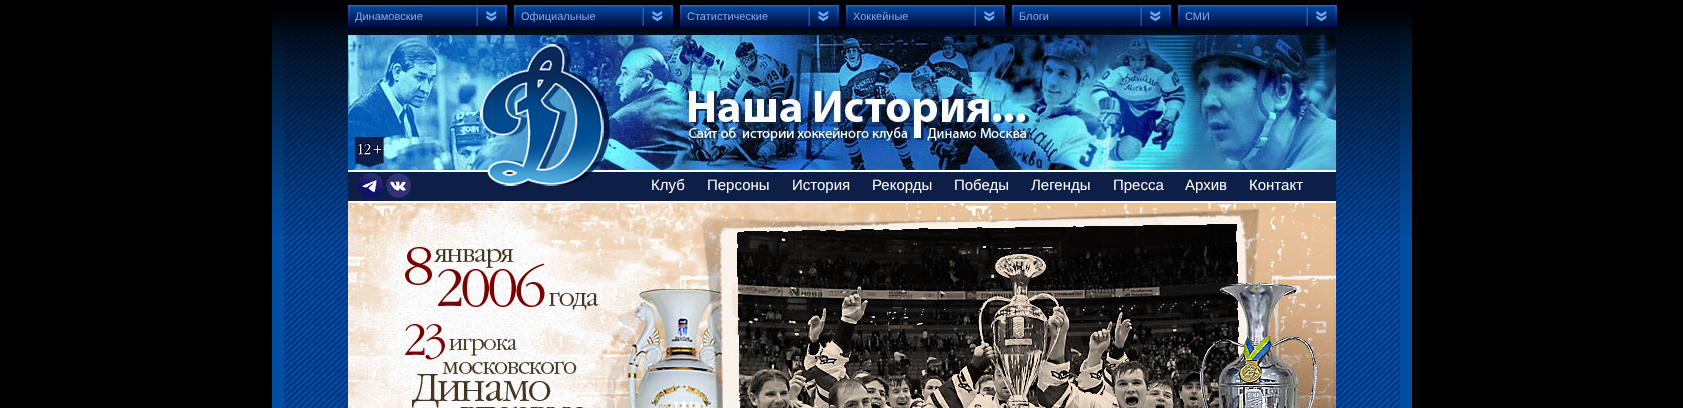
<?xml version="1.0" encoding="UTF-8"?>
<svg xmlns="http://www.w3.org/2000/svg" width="1683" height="408">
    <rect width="100%" height="100%" fill="#000000"/>
    <image x="272" y="3" width="1140" height="405" href="img_01.png"/>
    <image x="272" y="0" width="1140" height="235" href="img_02.png"/>
    <image x="348" y="35" width="988" height="135" href="img_03.png"/>
    <image x="348" y="5" width="159" height="22" href="img_04.png"/>
    <text x="355" y="20" font-family="Liberation Sans" font-size="11" fill="#8EA2F7">Динамовские</text>
    <image x="514" y="5" width="159" height="22" href="img_04.png"/>
    <text x="521" y="20" font-family="Liberation Sans" font-size="11" fill="#8EA2F7">Официальные</text>
    <image x="680" y="5" width="159" height="22" href="img_04.png"/>
    <text x="687" y="20" font-family="Liberation Sans" font-size="11" fill="#8EA2F7">Статистические</text>
    <image x="846" y="5" width="159" height="22" href="img_04.png"/>
    <text x="853" y="20" font-family="Liberation Sans" font-size="11" fill="#8EA2F7">Хоккейные</text>
    <image x="1012" y="5" width="159" height="22" href="img_04.png"/>
    <text x="1019" y="20" font-family="Liberation Sans" font-size="11" fill="#8EA2F7">Блоги</text>
    <image x="1178" y="5" width="159" height="22" href="img_04.png"/>
    <text x="1185" y="20" font-family="Liberation Sans" font-size="11" fill="#8EA2F7">СМИ</text>
    <rect x="348" y="172" width="988" height="29" fill="#0D1E47"/>
    <image x="358" y="173" width="25" height="25" href="img_05.png"/>
    <image x="386" y="173" width="25" height="25" href="img_06.png"/>
    <rect x="348" y="170" width="988" height="2" fill="#FFFFFF"/>
    <image x="480" y="44" width="130" height="142" href="img_07.png"/>
    <rect x="348" y="201" width="988" height="2" fill="#FFFFFF"/>
    <text x="651" y="190" font-family="Liberation Sans" font-size="15" fill="#FFFFFF">Клуб</text>
    <text x="707" y="190" font-family="Liberation Sans" font-size="15" fill="#FFFFFF">Персоны</text>
    <text x="792" y="190" font-family="Liberation Sans" font-size="15" fill="#FFFFFF">История</text>
    <text x="872" y="190" font-family="Liberation Sans" font-size="15" fill="#FFFFFF">Рекорды</text>
    <text x="954" y="190" font-family="Liberation Sans" font-size="15" fill="#FFFFFF">Победы</text>
    <text x="1031" y="190" font-family="Liberation Sans" font-size="15" fill="#FFFFFF">Легенды</text>
    <text x="1113" y="190" font-family="Liberation Sans" font-size="15" fill="#FFFFFF">Пресса</text>
    <text x="1185" y="190" font-family="Liberation Sans" font-size="15" fill="#FFFFFF">Архив</text>
    <text x="1249" y="190" font-family="Liberation Sans" font-size="15" fill="#FFFFFF">Контакт</text>
    <image x="348" y="203" width="988" height="205" href="img_08.png"/>
</svg>
